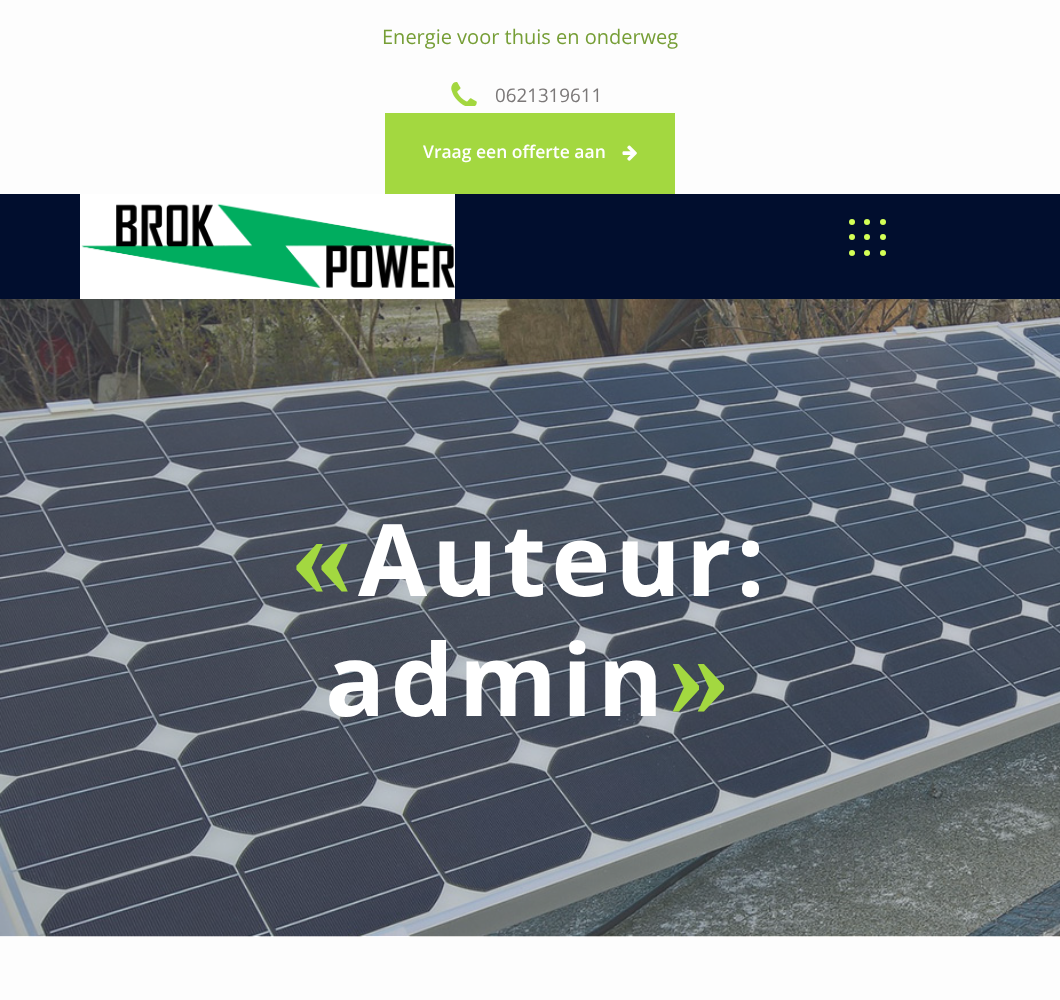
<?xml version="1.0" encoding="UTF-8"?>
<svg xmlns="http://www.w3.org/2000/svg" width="1060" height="1000">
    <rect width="100%" height="100%" fill="#FDFDFD"/>
    <text x="382" y="44" font-family="Open Sans" font-size="20" fill="#769E36">Energie voor thuis en onderweg</text>
    <image x="451" y="82" width="26" height="24" href="img_01.png"/>
    <text x="495" y="102" font-family="Open Sans" font-size="18.75" fill="#7B7878">0621319611</text>
    <rect x="385" y="113" width="290" height="81" fill="#A3D840"/>
    <text x="423" y="158" font-family="Open Sans" font-size="17.5" font-weight="600" fill="#FFFFFF">Vraag een offerte aan</text>
    <image x="622" y="145" width="15" height="16" href="img_02.png"/>
    <rect x="0" y="194" width="1060" height="105" fill="#010E2E"/>
    <rect x="80" y="194" width="375" height="105" fill="#FFFFFF"/>
    <image x="81" y="203" width="374" height="85" href="img_03.png"/>
    <circle cx="852" cy="222" r="3" fill="#D4FF56"/>
    <circle cx="867" cy="222" r="3" fill="#D4FF56"/>
    <circle cx="883" cy="222" r="3" fill="#D4FF56"/>
    <circle cx="852" cy="237" r="3" fill="#D4FF56"/>
    <circle cx="867" cy="237" r="3" fill="#D4FF56"/>
    <circle cx="883" cy="237" r="3" fill="#D4FF56"/>
    <circle cx="852" cy="253" r="3" fill="#D4FF56"/>
    <circle cx="867" cy="253" r="3" fill="#D4FF56"/>
    <circle cx="883" cy="253" r="3" fill="#D4FF56"/>
    <image x="0" y="299" width="1060" height="638" href="img_04.png"/>
    <text x="290" y="596" font-family="Liberation Serif" font-size="125" font-weight="700" letter-spacing="5" fill="#A3D840">«</text>
    <text x="358" y="596" font-family="Open Sans" font-size="100" font-weight="700" letter-spacing="5" fill="#FFFFFF">Auteur:</text>
    <text x="325" y="716" font-family="Open Sans" font-size="100" font-weight="700" letter-spacing="5" fill="#FFFFFF">admin</text>
    <text x="668" y="716" font-family="Liberation Serif" font-size="125" font-weight="700" letter-spacing="5" fill="#A3D840">»</text>
</svg>
